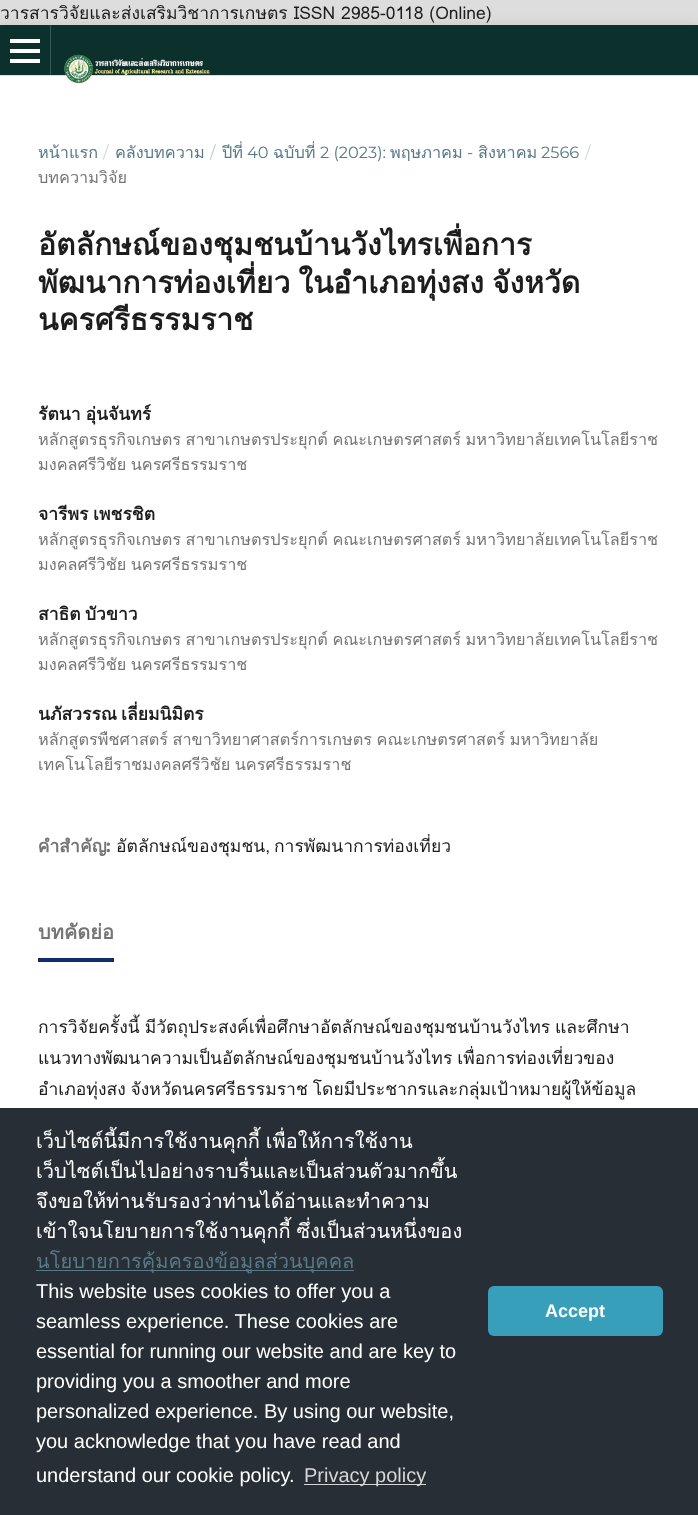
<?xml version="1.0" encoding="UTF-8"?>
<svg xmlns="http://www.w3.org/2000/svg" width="698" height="1515">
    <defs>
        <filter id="blur1" x="-50%" y="-200%" width="200%" height="500%"><feGaussianBlur stdDeviation="6"/></filter>
    </defs>
    <rect width="100%" height="100%" fill="#DDDDDD"/>
    <rect x="0" y="25" width="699" height="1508" fill="#000000" fill-opacity="0.1" filter="url(#blur1)"/>
    <text x="0" y="19" font-family="Loma" font-size="17.5" fill="#1D1D1D">วารสารวิจัยและส่งเสริมวิชาการเกษตร ISSN 2985-0118 (Online)</text>
    <rect x="0" y="76" width="698" height="1032" fill="#FFFFFF"/>
    <rect x="0" y="25" width="698" height="50" fill="#0C302B"/>
    <rect x="0" y="75" width="698" height="1" fill="#DDDDDD"/>
    <rect x="50" y="25" width="1" height="50" fill="#3D5955"/>
    <rect x="10" y="59" width="30" height="4" fill="#FFFFFF"/>
    <rect x="10" y="39" width="30" height="4" fill="#FFFFFF"/>
    <rect x="10" y="49" width="30" height="4" fill="#FFFFFF"/>
    <image x="64" y="54" width="146" height="30" href="img_01.png"/>
    <text x="38" y="158" font-family="Loma" font-size="16.25" fill="#577A89">หน้าแรก</text>
    <text x="103" y="158" font-family="Montserrat" font-size="16.25" fill="#D6D6D6">/</text>
    <text x="115" y="158" font-family="Loma" font-size="16.25" fill="#577A89">คลังบทความ</text>
    <text x="222" y="158" font-family="Loma" font-size="16.25" fill="#577A89">ปีที่</text>
    <text x="210" y="158" font-family="Montserrat" font-size="16.25" fill="#C3C7C9">/</text>
    <text x="247" y="158" font-family="Montserrat" font-size="16.25" fill="#577A89">40</text>
    <text x="273" y="158" font-family="Loma" font-size="16.25" fill="#577A89">ฉบับที่</text>
    <text x="320" y="158" font-family="Montserrat" font-size="16.25" fill="#577A89">2 (2023):</text>
    <text x="390" y="158" font-family="Loma" font-size="16.25" fill="#577A89">พฤษภาคม</text>
    <text x="467" y="158" font-family="Montserrat" font-size="16.25" fill="#577A89">-</text>
    <text x="478" y="158" font-family="Loma" font-size="16.25" fill="#577A89">สิงหาคม</text>
    <text x="541" y="158" font-family="Montserrat" font-size="16.25" fill="#577A89">2566</text>
    <text x="585" y="158" font-family="Montserrat" font-size="16.25" fill="#D6D6D6">/</text>
    <text x="38" y="183" font-family="Loma" font-size="16.25" fill="#757575">บทความวิจัย</text>
    <text font-family="Loma" font-size="30" font-weight="700" fill="#1D1D1D">
        <tspan x="38" y="255">อัตลักษณ์ของชุมชนบ้านวังไทรเพื่อการ</tspan>
        <tspan x="38" y="293" word-spacing="-2">พัฒนาการท่องเที่ยว ในอำเภอทุ่งสง จังหวัด</tspan>
        <tspan x="38" y="330">นครศรีธรรมราช</tspan>
    </text>
    <text x="38" y="420" word-spacing="-1" font-family="Loma" font-size="17.5" font-weight="700" fill="#1D1D1D">รัตนา อุ่นจันทร์</text>
    <text font-family="Loma" font-size="16.25" fill="#757575">
        <tspan x="38" y="445" word-spacing="-1">หลักสูตรธุรกิจเกษตร สาขาเกษตรประยุกต์ คณะเกษตรศาสตร์ มหาวิทยาลัยเทคโนโลยีราช</tspan>
        <tspan x="38" y="470" word-spacing="-1">มงคลศรีวิชัย นครศรีธรรมราช</tspan>
    </text>
    <text x="38" y="520" font-family="Loma" font-size="17.5" font-weight="700" fill="#1D1D1D">จารีพร</text>
    <text x="93" y="520" font-family="Loma" font-size="17.5" font-weight="700" fill="#1D1D1D">เพชรชิต</text>
    <text font-family="Loma" font-size="16.25" fill="#757575">
        <tspan x="38" y="545" word-spacing="-1">หลักสูตรธุรกิจเกษตร สาขาเกษตรประยุกต์ คณะเกษตรศาสตร์ มหาวิทยาลัยเทคโนโลยีราช</tspan>
        <tspan x="38" y="570" word-spacing="-1">มงคลศรีวิชัย นครศรีธรรมราช</tspan>
    </text>
    <text x="38" y="620" font-family="Loma" font-size="17.5" font-weight="700" fill="#1D1D1D">สาธิต</text>
    <text x="85" y="620" font-family="Loma" font-size="17.5" font-weight="700" fill="#1D1D1D">บัวขาว</text>
    <text font-family="Loma" font-size="16.25" fill="#757575">
        <tspan x="38" y="645" word-spacing="-1">หลักสูตรธุรกิจเกษตร สาขาเกษตรประยุกต์ คณะเกษตรศาสตร์ มหาวิทยาลัยเทคโนโลยีราช</tspan>
        <tspan x="38" y="670" word-spacing="-1">มงคลศรีวิชัย นครศรีธรรมราช</tspan>
    </text>
    <text x="38" y="720" font-family="Loma" font-size="17.5" font-weight="700" fill="#1D1D1D">นภัสวรรณ</text>
    <text x="121" y="720" font-family="Loma" font-size="17.5" font-weight="700" fill="#1D1D1D">เลี่ยมนิมิตร</text>
    <text font-family="Loma" font-size="16.25" fill="#757575">
        <tspan x="38" y="745" word-spacing="-1">หลักสูตรพืชศาสตร์ สาขาวิทยาศาสตร์การเกษตร คณะเกษตรศาสตร์ มหาวิทยาลัย</tspan>
        <tspan x="38" y="770" word-spacing="-1">เทคโนโลยีราชมงคลศรีวิชัย นครศรีธรรมราช</tspan>
    </text>
    <text x="38" y="852" font-family="Loma" font-size="17.5" font-weight="700" fill="#757575">คำสำคัญ</text>
    <text x="106" y="852" font-family="Montserrat" font-size="17.5" font-weight="700" fill="#757575">:</text>
    <text x="116" y="852" font-family="Loma" font-size="17.5" fill="#1D1D1D">อัตลักษณ์ของชุมชน,</text>
    <text x="274" y="852" font-family="Loma" font-size="17.5" fill="#1D1D1D">การพัฒนาการท่องเที่ยว</text>
    <rect x="38" y="958" width="76" height="4" fill="#102B6D"/>
    <text x="38" y="939" font-family="Loma" font-size="20" font-weight="700" fill="#757575">บทคัดย่อ</text>
    <text font-family="Loma" font-size="17.5" fill="#1D1D1D">
        <tspan x="38" y="1033" word-spacing="-1">การวิจัยครั้งนี้ มีวัตถุประสงค์เพื่อศึกษาอัตลักษณ์ของชุมชนบ้านวังไทร และศึกษา</tspan>
        <tspan x="38" y="1064" word-spacing="-1">แนวทางพัฒนาความเป็นอัตลักษณ์ของชุมชนบ้านวังไทร เพื่อการท่องเที่ยวของ</tspan>
        <tspan x="38" y="1095" word-spacing="-1">อำเภอทุ่งสง จังหวัดนครศรีธรรมราช โดยมีประชากรและกลุ่มเป้าหมายผู้ให้ข้อมูล</tspan>
    </text>
    <rect x="0" y="1108" width="698" height="407" fill="#272E35"/>
    <text font-family="Loma" font-size="20" fill="#FFFFFF">
        <tspan x="36" y="1148" word-spacing="-1">เว็บไซต์นี้มีการใช้งานคุกกี้ เพื่อให้การใช้งาน</tspan>
        <tspan x="36" y="1178">เว็บไซต์เป็นไปอย่างราบรื่นและเป็นส่วนตัวมากขึ้น</tspan>
        <tspan x="36" y="1208">จึงขอให้ท่านรับรองว่าท่านได้อ่านและทำความ</tspan>
        <tspan x="36" y="1238" word-spacing="-1">เข้าใจนโยบายการใช้งานคุกกี้ ซึ่งเป็นส่วนหนึ่งของ</tspan>
    </text>
    <rect x="36" y="1270" width="318" height="1" fill="#577A89"/>
    <text x="36" y="1268" font-family="Loma" font-size="20" fill="#577A89">นโยบายการคุ้มครองข้อมูลส่วนบุคคล</text>
    <text font-family="Liberation Sans" font-size="20" fill="#FFFFFF">
        <tspan x="36" y="1298">This website uses cookies to offer you a</tspan>
        <tspan x="36" y="1328">seamless experience. These cookies are</tspan>
        <tspan x="36" y="1358">essential for running our website and are key to</tspan>
        <tspan x="36" y="1388">providing you a smoother and more</tspan>
        <tspan x="36" y="1418">personalized experience. By using our website,</tspan>
        <tspan x="36" y="1448">you acknowledge that you have read and</tspan>
        <tspan x="36" y="1482">understand our cookie policy.</tspan>
    </text>
    <rect x="304" y="1484" width="122" height="1" fill="#D4D5D7"/>
    <text x="304" y="1482" font-family="Liberation Sans" font-size="20" fill="#D6D6D6">Privacy policy</text>
    <rect x="488" y="1286" width="175" height="50" rx="6" fill="#389FBB"/>
    <text x="545" y="1317" font-family="Liberation Sans" font-size="18" font-weight="700" fill="#FFFFFF">Accept</text>
</svg>
